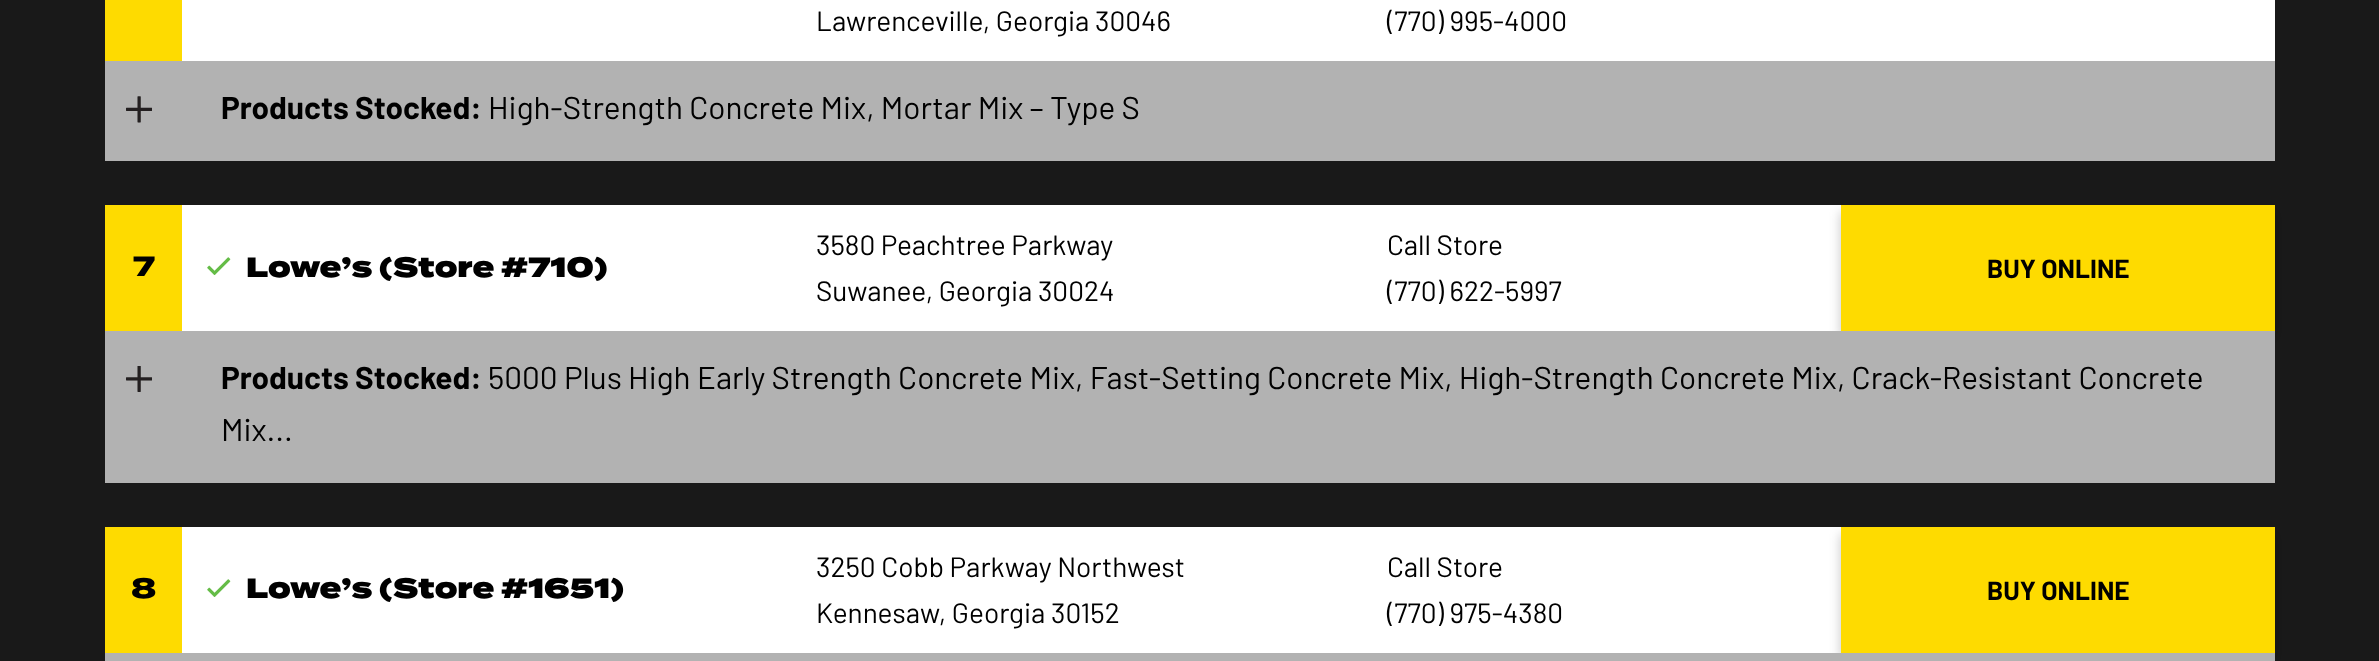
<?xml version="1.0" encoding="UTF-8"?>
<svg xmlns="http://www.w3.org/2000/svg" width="2379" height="661">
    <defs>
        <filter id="blur1" x="-50%" y="-200%" width="200%" height="500%"><feGaussianBlur stdDeviation="6"/></filter>
    </defs>
    <rect width="100%" height="100%" fill="#191919"/>
    <rect x="182" y="0" width="2093" height="61" fill="#FFFFFF"/>
    <rect x="105" y="0" width="77" height="61" fill="#FEDB00"/>
    <text x="816" y="31" font-family="Barlow" font-size="28" fill="#000000">Lawrenceville, Georgia 30046</text>
    <text x="1387" y="31" font-family="Barlow" font-size="28" fill="#000000">(770) 995-4000</text>
    <rect x="105" y="61" width="2170" height="100" fill="#B2B2B2"/>
    <image x="126" y="96" width="26" height="27" href="img_01.png"/>
    <text x="221" y="119" font-family="Barlow" font-size="31.5" font-weight="700" fill="#000000">Products Stocked:</text>
    <text x="488" y="119" font-family="Barlow" font-size="31.5" fill="#000000">High-Strength Concrete Mix, Mortar Mix – Type S</text>
    <rect x="182" y="205" width="1659" height="126" fill="#FFFFFF"/>
    <rect x="105" y="205" width="77" height="126" fill="#FEDB00"/>
    <text x="133" y="276" font-family="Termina" font-size="28" font-weight="900" fill="#000000">7</text>
    <image x="207" y="257" width="24" height="18" href="img_02.png"/>
    <text x="246" y="277" font-family="'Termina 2'" font-size="28" font-weight="900" fill="#000000">Lowe’s (Store #710)</text>
    <text font-family="Barlow" font-size="28" fill="#000000">
        <tspan x="816" y="255">3580 Peachtree Parkway</tspan>
        <tspan x="816" y="301">Suwanee, Georgia 30024</tspan>
    </text>
    <text font-family="Barlow" font-size="28" fill="#000000">
        <tspan x="1387" y="255">Call Store</tspan>
        <tspan x="1387" y="301">(770) 622-5997</tspan>
    </text>
    <rect x="1841" y="212" width="434" height="126" fill="#000000" fill-opacity="0.23" filter="url(#blur1)"/>
    <rect x="1841" y="205" width="434" height="126" fill="#FEDB00"/>
    <text x="1987" y="278" font-family="Barlow" font-size="26.25" font-weight="700" fill="#000000">BUY ONLINE</text>
    <rect x="105" y="331" width="2170" height="152" fill="#B2B2B2"/>
    <image x="126" y="366" width="26" height="26" href="img_03.png"/>
    <text x="221" y="389" font-family="Barlow" font-size="31.5" font-weight="700" fill="#000000">Products Stocked:</text>
    <text x="488" y="389" font-family="Barlow" font-size="31.5" fill="#000000">5000 Plus High Early Strength Concrete Mix, Fast-Setting Concrete Mix, High-Strength Concrete Mix, Crack-Resistant Concrete</text>
    <text x="221" y="441" font-family="Barlow" font-size="31.5" fill="#000000">Mix...</text>
    <rect x="182" y="527" width="1659" height="126" fill="#FFFFFF"/>
    <rect x="105" y="527" width="77" height="126" fill="#FEDB00"/>
    <text x="131" y="598" font-family="Termina" font-size="28" font-weight="900" fill="#000000">8</text>
    <image x="207" y="579" width="24" height="18" href="img_02.png"/>
    <text x="246" y="598" font-family="'Termina 2'" font-size="28" font-weight="900" fill="#000000">Lowe’s (Store #1651)</text>
    <text font-family="Barlow" font-size="28" fill="#000000">
        <tspan x="816" y="577">3250 Cobb Parkway Northwest</tspan>
        <tspan x="816" y="623">Kennesaw, Georgia 30152</tspan>
    </text>
    <text font-family="Barlow" font-size="28" fill="#000000">
        <tspan x="1387" y="577">Call Store</tspan>
        <tspan x="1387" y="623">(770) 975-4380</tspan>
    </text>
    <rect x="1841" y="534" width="434" height="126" fill="#000000" fill-opacity="0.23" filter="url(#blur1)"/>
    <rect x="1841" y="527" width="434" height="126" fill="#FEDB00"/>
    <text x="1987" y="600" font-family="Barlow" font-size="26.25" font-weight="700" fill="#000000">BUY ONLINE</text>
    <rect x="105" y="653" width="2170" height="8" fill="#B2B2B2"/>
</svg>
